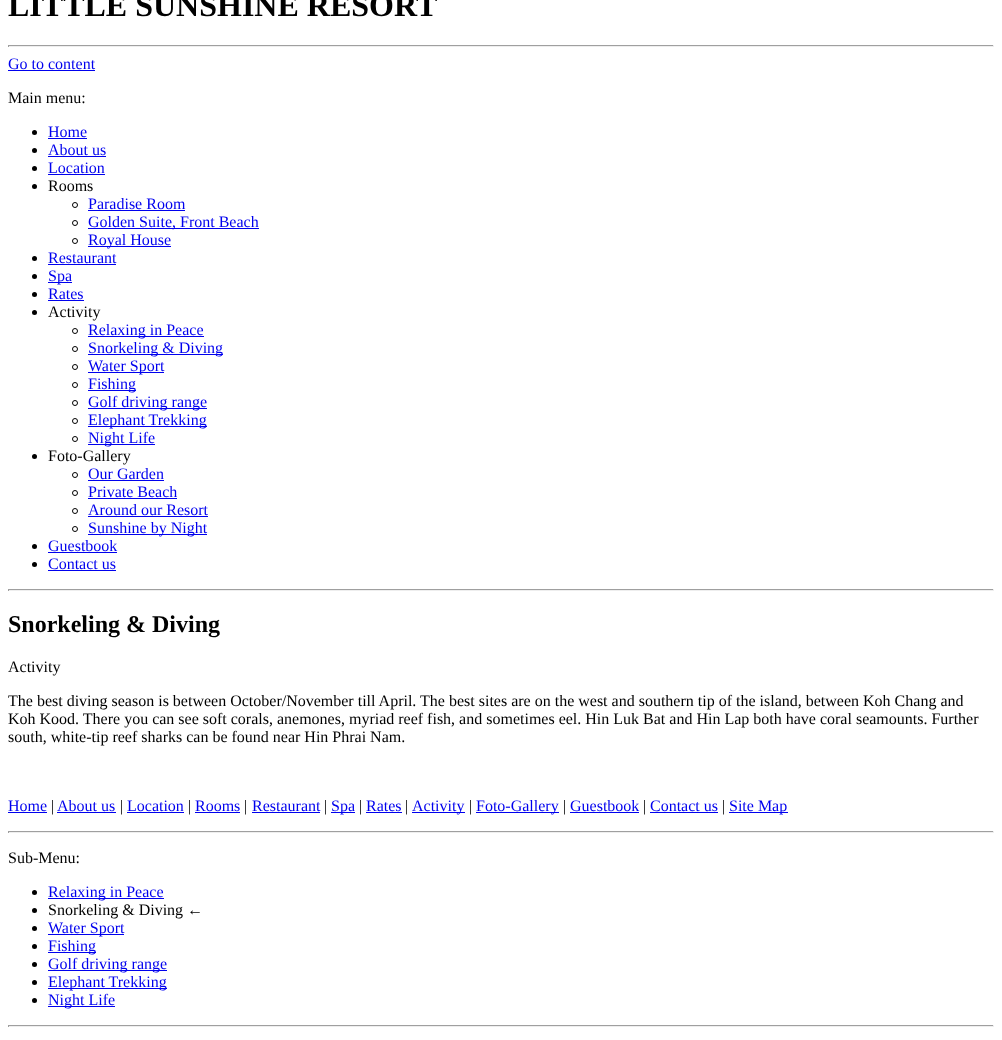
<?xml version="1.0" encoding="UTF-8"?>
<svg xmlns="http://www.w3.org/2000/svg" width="1002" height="1040">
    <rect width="100%" height="100%" fill="#FFFFFF"/>
    <text x="8" y="16" font-family="Liberation Serif" font-size="32" font-weight="700" fill="#000000">LITTLE SUNSHINE RESORT</text>
    <rect x="8" y="45" width="986" height="1" fill="#9F9F9F"/>
    <rect x="993" y="45" width="1" height="2" fill="#EEEEEE"/>
    <rect x="8" y="46" width="986" height="1" fill="#EEEEEE"/>
    <rect x="8" y="45" width="1" height="2" fill="#9F9F9F"/>
    <text x="8" y="69" font-family="Liberation Serif" font-size="16" fill="#0000EE">Go to content</text>
    <rect x="8" y="70" width="87" height="1" fill="#0000EE"/>
    <text x="8" y="103" font-family="Liberation Serif" font-size="16" fill="#000000">Main menu:</text>
    <circle cx="34.5" cy="132.5" r="2.5" fill="#000000"/>
    <text x="48" y="137" font-family="Liberation Serif" font-size="16" fill="#0000EE">Home</text>
    <rect x="48" y="138" width="39" height="1" fill="#0000EE"/>
    <circle cx="34.5" cy="150.5" r="2.5" fill="#000000"/>
    <text x="48" y="155" font-family="Liberation Serif" font-size="16" fill="#0000EE">About us</text>
    <rect x="48" y="156" width="58" height="1" fill="#0000EE"/>
    <circle cx="34.5" cy="168.5" r="2.5" fill="#000000"/>
    <text x="48" y="173" font-family="Liberation Serif" font-size="16" fill="#0000EE">Location</text>
    <rect x="48" y="174" width="57" height="1" fill="#0000EE"/>
    <circle cx="34.5" cy="186.5" r="2.5" fill="#000000"/>
    <text x="48" y="191" font-family="Liberation Serif" font-size="16" fill="#000000">Rooms</text>
    <circle cx="75" cy="205" r="2.5" fill="none" stroke="#000000"/>
    <text x="88" y="209" font-family="Liberation Serif" font-size="16" fill="#0000EE">Paradise Room</text>
    <rect x="88" y="210" width="97" height="1" fill="#0000EE"/>
    <circle cx="75" cy="223" r="2.5" fill="none" stroke="#000000"/>
    <rect x="88" y="228" width="171" height="1" fill="#0000EE"/>
    <text x="88" y="227" font-family="Liberation Serif" font-size="16" fill="#0000EE">Golden Suite, Front Beach</text>
    <circle cx="75" cy="241" r="2.5" fill="none" stroke="#000000"/>
    <rect x="88" y="246" width="83" height="1" fill="#0000EE"/>
    <text x="88" y="245" font-family="Liberation Serif" font-size="16" fill="#0000EE">Royal House</text>
    <circle cx="34.5" cy="258.5" r="2.5" fill="#000000"/>
    <text x="48" y="263" font-family="Liberation Serif" font-size="16" fill="#0000EE">Restaurant</text>
    <rect x="48" y="264" width="68" height="1" fill="#0000EE"/>
    <circle cx="34.5" cy="276.5" r="2.5" fill="#000000"/>
    <rect x="48" y="282" width="24" height="1" fill="#0000EE"/>
    <text x="48" y="281" font-family="Liberation Serif" font-size="16" fill="#0000EE">Spa</text>
    <circle cx="34.5" cy="294.5" r="2.5" fill="#000000"/>
    <text x="48" y="299" font-family="Liberation Serif" font-size="16" fill="#0000EE">Rates</text>
    <rect x="48" y="300" width="36" height="1" fill="#0000EE"/>
    <circle cx="34.5" cy="312.5" r="2.5" fill="#000000"/>
    <text x="48" y="317" font-family="Liberation Serif" font-size="16" fill="#000000">Activity</text>
    <circle cx="75" cy="331" r="2.5" fill="none" stroke="#000000"/>
    <rect x="88" y="336" width="116" height="1" fill="#0000EE"/>
    <text x="88" y="335" font-family="Liberation Serif" font-size="16" fill="#0000EE">Relaxing in Peace</text>
    <circle cx="75" cy="349" r="2.5" fill="none" stroke="#000000"/>
    <rect x="88" y="354" width="135" height="1" fill="#0000EE"/>
    <text x="88" y="353" font-family="Liberation Serif" font-size="16" fill="#0000EE">Snorkeling &amp; Diving</text>
    <circle cx="75" cy="367" r="2.5" fill="none" stroke="#000000"/>
    <rect x="88" y="372" width="76" height="1" fill="#0000EE"/>
    <text x="88" y="371" font-family="Liberation Serif" font-size="16" fill="#0000EE">Water Sport</text>
    <circle cx="75" cy="385" r="2.5" fill="none" stroke="#000000"/>
    <rect x="88" y="390" width="48" height="1" fill="#0000EE"/>
    <text x="88" y="389" font-family="Liberation Serif" font-size="16" fill="#0000EE">Fishing</text>
    <circle cx="75" cy="403" r="2.5" fill="none" stroke="#000000"/>
    <rect x="88" y="408" width="119" height="1" fill="#0000EE"/>
    <text x="88" y="407" font-family="Liberation Serif" font-size="16" fill="#0000EE">Golf driving range</text>
    <circle cx="75" cy="421" r="2.5" fill="none" stroke="#000000"/>
    <rect x="88" y="426" width="119" height="1" fill="#0000EE"/>
    <text x="88" y="425" font-family="Liberation Serif" font-size="16" fill="#0000EE">Elephant Trekking</text>
    <circle cx="75" cy="439" r="2.5" fill="none" stroke="#000000"/>
    <rect x="88" y="444" width="67" height="1" fill="#0000EE"/>
    <text x="88" y="443" font-family="Liberation Serif" font-size="16" fill="#0000EE">Night Life</text>
    <circle cx="34.5" cy="456.5" r="2.5" fill="#000000"/>
    <text x="48" y="461" font-family="Liberation Serif" font-size="16" fill="#000000">Foto-Gallery</text>
    <circle cx="75" cy="475" r="2.5" fill="none" stroke="#000000"/>
    <text x="88" y="479" font-family="Liberation Serif" font-size="16" fill="#0000EE">Our Garden</text>
    <rect x="88" y="480" width="76" height="1" fill="#0000EE"/>
    <circle cx="75" cy="493" r="2.5" fill="none" stroke="#000000"/>
    <text x="88" y="497" font-family="Liberation Serif" font-size="16" fill="#0000EE">Private Beach</text>
    <rect x="88" y="498" width="89" height="1" fill="#0000EE"/>
    <circle cx="75" cy="511" r="2.5" fill="none" stroke="#000000"/>
    <text x="88" y="515" font-family="Liberation Serif" font-size="16" fill="#0000EE">Around our Resort</text>
    <rect x="88" y="516" width="120" height="1" fill="#0000EE"/>
    <circle cx="75" cy="529" r="2.5" fill="none" stroke="#000000"/>
    <rect x="88" y="534" width="119" height="1" fill="#0000EE"/>
    <text x="88" y="533" font-family="Liberation Serif" font-size="16" fill="#0000EE">Sunshine by Night</text>
    <circle cx="34.5" cy="546.5" r="2.5" fill="#000000"/>
    <text x="48" y="551" font-family="Liberation Serif" font-size="16" fill="#0000EE">Guestbook</text>
    <rect x="48" y="552" width="69" height="1" fill="#0000EE"/>
    <circle cx="34.5" cy="564.5" r="2.5" fill="#000000"/>
    <text x="48" y="569" font-family="Liberation Serif" font-size="16" fill="#0000EE">Contact us</text>
    <rect x="48" y="570" width="68" height="1" fill="#0000EE"/>
    <rect x="8" y="589" width="986" height="1" fill="#9F9F9F"/>
    <rect x="993" y="589" width="1" height="2" fill="#EEEEEE"/>
    <rect x="8" y="590" width="986" height="1" fill="#EEEEEE"/>
    <rect x="8" y="589" width="1" height="2" fill="#9F9F9F"/>
    <text x="8" y="632" font-family="Liberation Serif" font-size="24" font-weight="700" fill="#000000">Snorkeling &amp; Diving</text>
    <text x="8" y="672" font-family="Liberation Serif" font-size="16" fill="#000000">Activity</text>
    <text font-family="Liberation Serif" font-size="16" fill="#000000">
        <tspan x="8" y="706">The best diving season is between October/November till April. The best sites are on the west and southern tip of the island, between Koh Chang and</tspan>
        <tspan x="8" y="724">Koh Kood. There you can see soft corals, anemones, myriad reef fish, and sometimes eel. Hin Luk Bat and Hin Lap both have coral seamounts. Further</tspan>
        <tspan x="8" y="742">south, white-tip reef sharks can be found near Hin Phrai Nam.</tspan>
    </text>
    <text x="8" y="811" font-family="Liberation Serif" font-size="16" fill="#0000EE">Home</text>
    <rect x="8" y="812" width="39" height="1" fill="#0000EE"/>
    <text x="51" y="811" font-family="Liberation Serif" font-size="16" fill="#000000">|</text>
    <text x="57" y="811" font-family="Liberation Serif" font-size="16" fill="#0000EE">About us</text>
    <rect x="57" y="812" width="59" height="1" fill="#0000EE"/>
    <text x="120" y="811" font-family="Liberation Serif" font-size="16" fill="#000000">|</text>
    <text x="127" y="811" font-family="Liberation Serif" font-size="16" fill="#0000EE">Location</text>
    <rect x="127" y="812" width="57" height="1" fill="#0000EE"/>
    <text x="188" y="811" font-family="Liberation Serif" font-size="16" fill="#000000">|</text>
    <text x="195" y="811" font-family="Liberation Serif" font-size="16" fill="#0000EE">Rooms</text>
    <rect x="195" y="812" width="45" height="1" fill="#0000EE"/>
    <text x="244" y="811" font-family="Liberation Serif" font-size="16" fill="#000000">|</text>
    <text x="252" y="811" font-family="Liberation Serif" font-size="16" fill="#0000EE">Restaurant</text>
    <rect x="252" y="812" width="68" height="1" fill="#0000EE"/>
    <text x="324" y="811" font-family="Liberation Serif" font-size="16" fill="#000000">|</text>
    <rect x="331" y="812" width="24" height="1" fill="#0000EE"/>
    <text x="331" y="811" font-family="Liberation Serif" font-size="16" fill="#0000EE">Spa</text>
    <text x="359" y="811" font-family="Liberation Serif" font-size="16" fill="#000000">|</text>
    <text x="366" y="811" font-family="Liberation Serif" font-size="16" fill="#0000EE">Rates</text>
    <rect x="366" y="812" width="36" height="1" fill="#0000EE"/>
    <text x="405" y="811" font-family="Liberation Serif" font-size="16" fill="#000000">|</text>
    <rect x="412" y="812" width="53" height="1" fill="#0000EE"/>
    <text x="412" y="811" font-family="Liberation Serif" font-size="16" fill="#0000EE">Activity</text>
    <text x="469" y="811" font-family="Liberation Serif" font-size="16" fill="#000000">|</text>
    <rect x="476" y="812" width="83" height="1" fill="#0000EE"/>
    <text x="476" y="811" font-family="Liberation Serif" font-size="16" fill="#0000EE">Foto-Gallery</text>
    <text x="563" y="811" font-family="Liberation Serif" font-size="16" fill="#000000">|</text>
    <text x="570" y="811" font-family="Liberation Serif" font-size="16" fill="#0000EE">Guestbook</text>
    <rect x="570" y="812" width="69" height="1" fill="#0000EE"/>
    <text x="643" y="811" font-family="Liberation Serif" font-size="16" fill="#000000">|</text>
    <text x="650" y="811" font-family="Liberation Serif" font-size="16" fill="#0000EE">Contact us</text>
    <rect x="650" y="812" width="68" height="1" fill="#0000EE"/>
    <text x="722" y="811" font-family="Liberation Serif" font-size="16" fill="#000000">|</text>
    <rect x="729" y="812" width="59" height="1" fill="#0000EE"/>
    <text x="729" y="811" font-family="Liberation Serif" font-size="16" fill="#0000EE">Site Map</text>
    <rect x="8" y="831" width="986" height="1" fill="#9F9F9F"/>
    <rect x="993" y="831" width="1" height="2" fill="#EEEEEE"/>
    <rect x="8" y="832" width="986" height="1" fill="#EEEEEE"/>
    <rect x="8" y="831" width="1" height="2" fill="#9F9F9F"/>
    <text x="8" y="863" font-family="Liberation Serif" font-size="16" fill="#000000">Sub-Menu:</text>
    <circle cx="34.5" cy="892.5" r="2.5" fill="#000000"/>
    <rect x="48" y="898" width="116" height="1" fill="#0000EE"/>
    <text x="48" y="897" font-family="Liberation Serif" font-size="16" fill="#0000EE">Relaxing in Peace</text>
    <circle cx="34.5" cy="910.5" r="2.5" fill="#000000"/>
    <text x="48" y="915" font-family="Liberation Serif" font-size="16" fill="#000000">Snorkeling &amp; Diving ←</text>
    <circle cx="34.5" cy="928.5" r="2.5" fill="#000000"/>
    <rect x="48" y="934" width="76" height="1" fill="#0000EE"/>
    <text x="48" y="933" font-family="Liberation Serif" font-size="16" fill="#0000EE">Water Sport</text>
    <circle cx="34.5" cy="946.5" r="2.5" fill="#000000"/>
    <rect x="48" y="952" width="48" height="1" fill="#0000EE"/>
    <text x="48" y="951" font-family="Liberation Serif" font-size="16" fill="#0000EE">Fishing</text>
    <circle cx="34.5" cy="964.5" r="2.5" fill="#000000"/>
    <rect x="48" y="970" width="119" height="1" fill="#0000EE"/>
    <text x="48" y="969" font-family="Liberation Serif" font-size="16" fill="#0000EE">Golf driving range</text>
    <circle cx="34.5" cy="982.5" r="2.5" fill="#000000"/>
    <rect x="48" y="988" width="119" height="1" fill="#0000EE"/>
    <text x="48" y="987" font-family="Liberation Serif" font-size="16" fill="#0000EE">Elephant Trekking</text>
    <circle cx="34.5" cy="1000.5" r="2.5" fill="#000000"/>
    <rect x="48" y="1006" width="67" height="1" fill="#0000EE"/>
    <text x="48" y="1005" font-family="Liberation Serif" font-size="16" fill="#0000EE">Night Life</text>
    <rect x="8" y="1025" width="986" height="1" fill="#9F9F9F"/>
    <rect x="993" y="1025" width="1" height="2" fill="#EEEEEE"/>
    <rect x="8" y="1026" width="986" height="1" fill="#EEEEEE"/>
    <rect x="8" y="1025" width="1" height="2" fill="#9F9F9F"/>
</svg>
